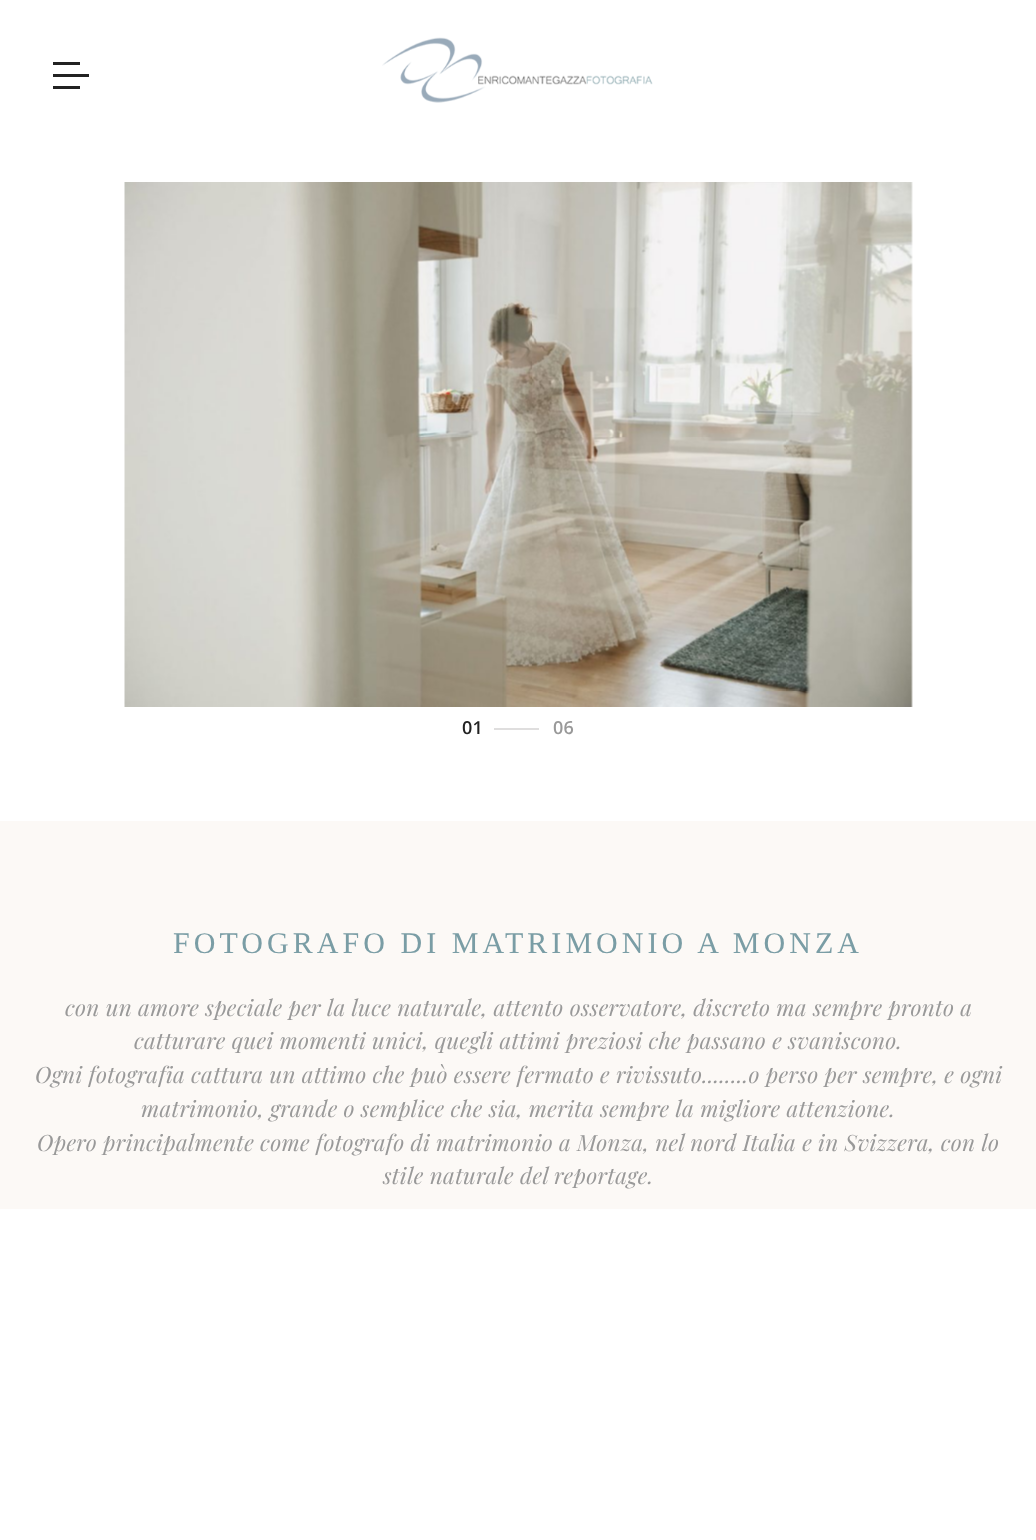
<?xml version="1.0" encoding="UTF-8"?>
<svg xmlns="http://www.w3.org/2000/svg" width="1036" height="1540">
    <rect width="100%" height="100%" fill="#FFFFFF"/>
    <rect x="53" y="62" width="27" height="3" fill="#222222"/>
    <rect x="53" y="74" width="36" height="3" fill="#222222"/>
    <rect x="53" y="86" width="27" height="3" fill="#222222"/>
    <image x="382" y="37" width="271" height="66" href="img_01.png"/>
    <image x="124" y="182" width="789" height="525" href="img_02.png"/>
    <text x="462" y="734" font-family="Open Sans" font-size="18" font-weight="600" letter-spacing="0.3" fill="#222222">01</text>
    <rect x="494" y="728" width="45" height="2" fill="#DFDEDE"/>
    <text x="553" y="734" font-family="Open Sans" font-size="18" font-weight="600" letter-spacing="0.3" fill="#999999">06</text>
    <rect x="0" y="821" width="1036" height="388" fill="#FCF9F6"/>
    <text x="173" y="953" font-family="Liberation Serif" font-size="30" letter-spacing="4.05" fill="#7A9DA5">FOTOGRAFO DI MATRIMONIO A MONZA</text>
    <text x="65" y="1016" font-family="Playfair Display" font-size="22.5" font-style="italic" letter-spacing="0.3" fill="#999999">con un amore speciale per la luce naturale, attento osservatore, discreto ma sempre pronto a</text>
    <text x="134" y="1049" font-family="Playfair Display" font-size="22.5" font-style="italic" letter-spacing="0.3" fill="#999999">catturare quei momenti unici, quegli attimi preziosi che passano e svaniscono.</text>
    <text x="35" y="1083" font-family="Playfair Display" font-size="22.5" font-style="italic" letter-spacing="0.3" fill="#999999">Ogni fotografia cattura un attimo che può essere fermato e rivissuto........o perso per sempre, e ogni</text>
    <text x="141" y="1117" font-family="Playfair Display" font-size="22.5" font-style="italic" letter-spacing="0.3" fill="#999999">matrimonio, grande o semplice che sia, merita sempre la migliore attenzione.</text>
    <text x="37" y="1151" font-family="Playfair Display" font-size="22.5" font-style="italic" letter-spacing="0.3" fill="#999999">Opero principalmente come fotografo di matrimonio a Monza, nel nord Italia e in Svizzera, con lo</text>
    <text x="383" y="1184" font-family="Playfair Display" font-size="22.5" font-style="italic" letter-spacing="0.3" fill="#999999">stile naturale del reportage.</text>
</svg>
